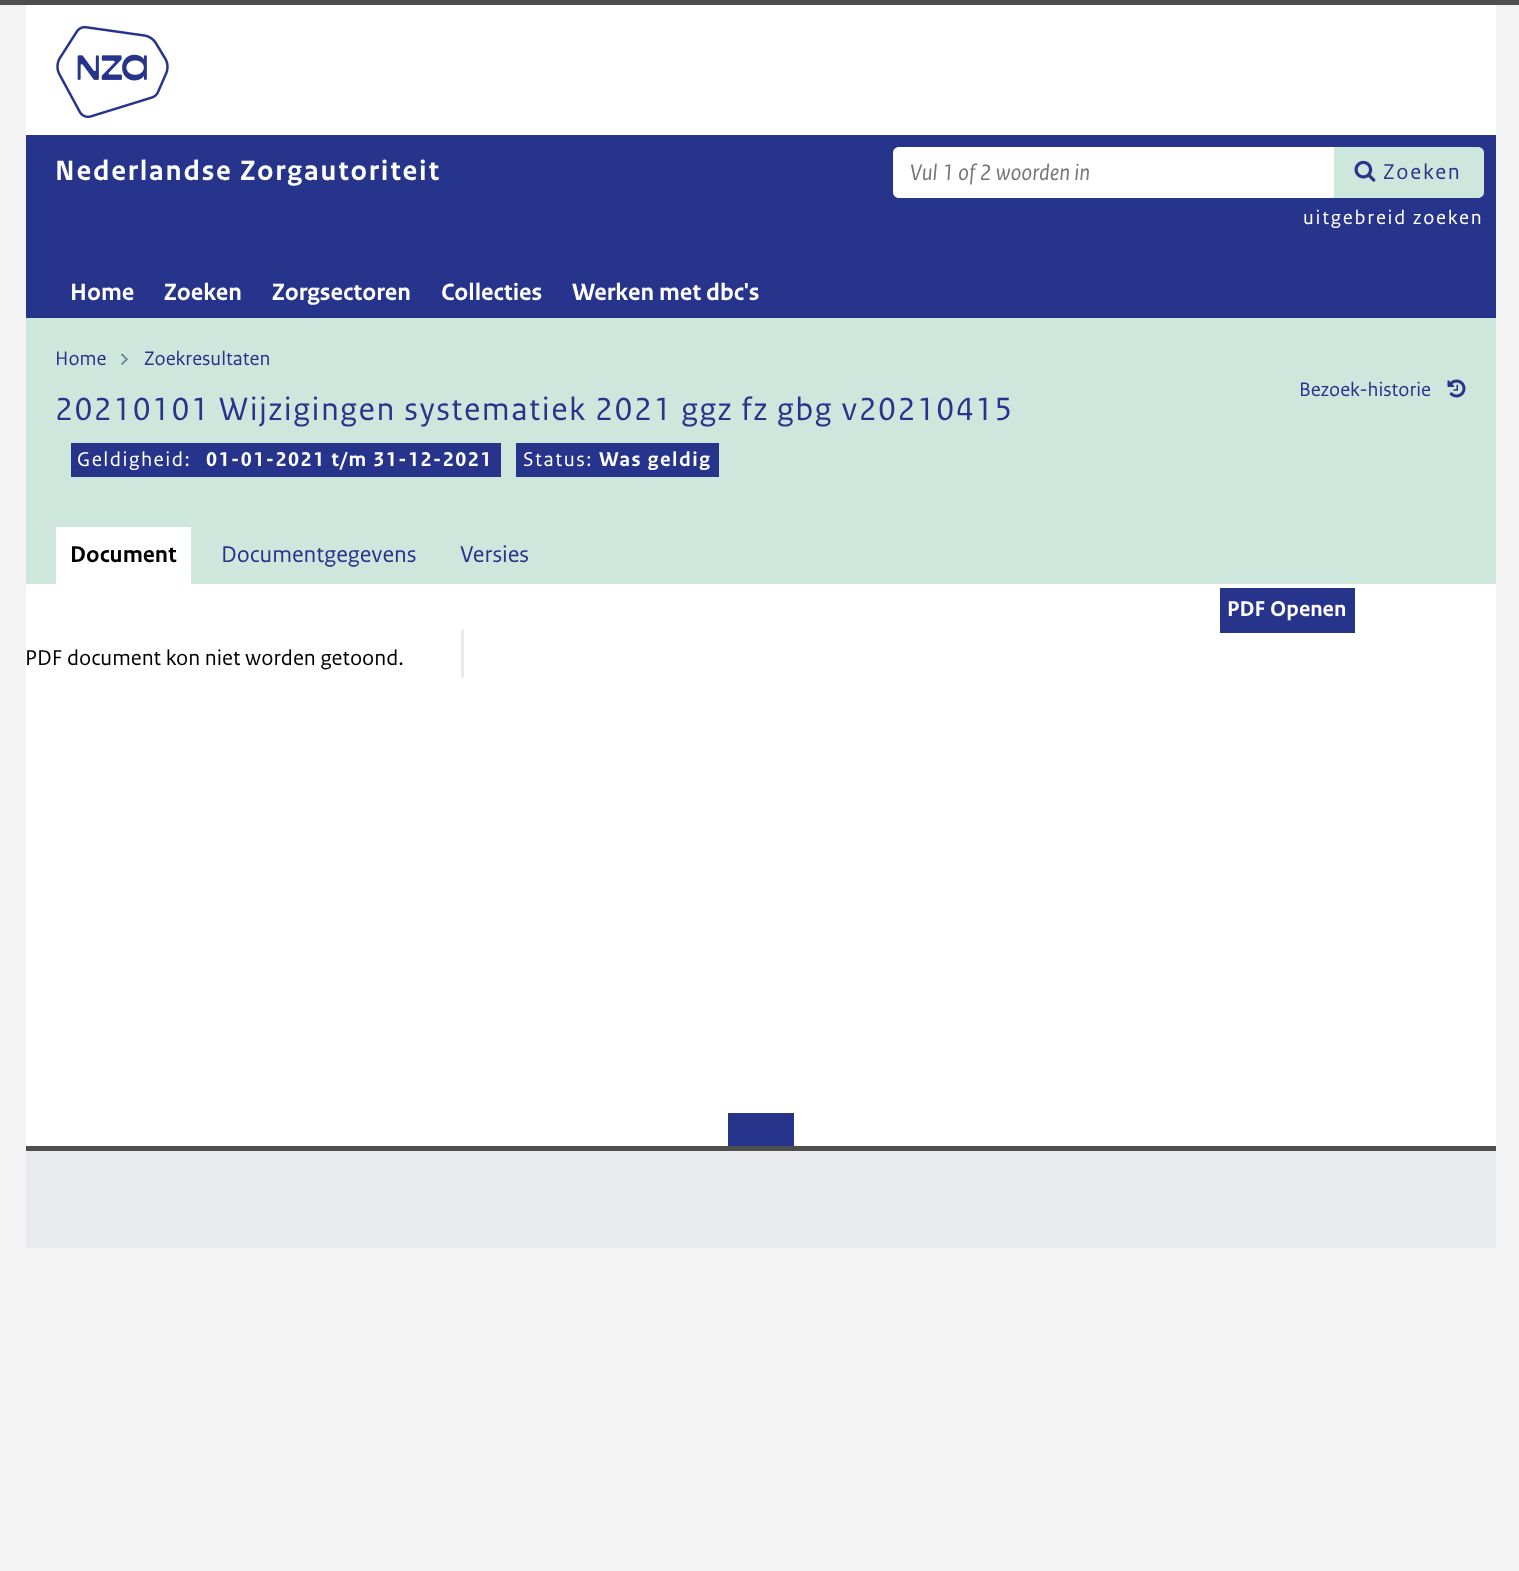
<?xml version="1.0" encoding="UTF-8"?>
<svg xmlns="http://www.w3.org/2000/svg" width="1519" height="1571">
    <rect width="100%" height="100%" fill="#F3F3F3"/>
    <rect x="0" y="0" width="1519" height="5" fill="#4E4E4E"/>
    <rect x="26" y="5" width="1470" height="1141" fill="#FFFFFF"/>
    <rect x="26" y="1146" width="1470" height="5" fill="#4E4E4E"/>
    <image x="56" y="25" width="113" height="93" href="img_01.png"/>
    <rect x="26" y="135" width="1470" height="183" fill="#27348B"/>
    <text x="55" y="180" font-family="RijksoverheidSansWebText" font-size="29.25" font-weight="700" letter-spacing="1.8" fill="#FFFFFF">Nederlandse Zorgautoriteit</text>
    <path d="M 899 147 H 1334 V 198 H 899 C 895.5 198 893 195.5 893 192 V 153 C 893 149.5 895.5 147 899 147 Z" fill="#FFFFFF"/>
    <text x="910" y="180" font-family="RijksoverheidSansWebText" font-size="23.5" font-style="italic" fill="#767676">Vul 1 of 2 woorden in</text>
    <path d="M 1334 147 H 1478 C 1481.5 147 1484 149.5 1484 153 V 192 C 1484 195.5 1481.5 198 1478 198 H 1334 Z" fill="#CEE7DC"/>
    <image x="1354" y="160" width="22" height="22" href="img_02.png"/>
    <text x="1383" y="179" font-family="RijksoverheidSansWebText" font-size="22.5" letter-spacing="1.8" fill="#27348B">Zoeken</text>
    <text x="1303" y="224" font-family="RijksoverheidSansWebText" font-size="20.5" letter-spacing="1.8" fill="#FFFFFF">uitgebreid zoeken</text>
    <text x="70" y="300" font-family="RijksoverheidSansWebText" font-size="24.75" font-weight="700" fill="#FFFFFF">Home</text>
    <text x="164" y="300" font-family="RijksoverheidSansWebText" font-size="24.75" font-weight="700" fill="#FFFFFF">Zoeken</text>
    <text x="272" y="300" font-family="RijksoverheidSansWebText" font-size="24.75" font-weight="700" fill="#FFFFFF">Zorgsectoren</text>
    <text x="441" y="300" font-family="RijksoverheidSansWebText" font-size="24.75" font-weight="700" fill="#FFFFFF">Collecties</text>
    <text x="572" y="300" font-family="RijksoverheidSansWebText" font-size="24.75" font-weight="700" fill="#FFFFFF">Werken met dbc's</text>
    <rect x="26" y="318" width="1470" height="266" fill="#CEE7DC"/>
    <text x="55" y="365" font-family="RijksoverheidSansWebText" font-size="20.5" fill="#27348B">Home</text>
    <image x="121" y="354" width="7" height="11" href="img_03.png"/>
    <text x="144" y="365" font-family="RijksoverheidSansWebText" font-size="20.5" fill="#27348B">Zoekresultaten</text>
    <text x="1299" y="396" font-family="RijksoverheidSansWebText" font-size="20.5" fill="#27348B">Bezoek-historie</text>
    <image x="1447" y="379" width="19" height="19" href="img_04.png"/>
    <text x="55" y="420" font-family="RijksoverheidSansWebText" font-size="33.75" letter-spacing="1.5" fill="#27348B">20210101 Wijzigingen systematiek 2021 ggz fz gbg v20210415</text>
    <rect x="71" y="443" width="648" height="34" fill="#27348B"/>
    <text x="77" y="466" font-family="RijksoverheidSansWebText" font-size="21" letter-spacing="1.5" fill="#FFFFFF">Geldigheid:</text>
    <text x="206" y="466" font-family="RijksoverheidSansWebText" font-size="21" font-weight="700" letter-spacing="1.5" fill="#FFFFFF">01-01-2021 t/m 31-12-2021</text>
    <rect x="501" y="443" width="15" height="34" fill="#CEE7DC"/>
    <text x="523" y="466" font-family="RijksoverheidSansWebText" font-size="21" letter-spacing="1.5" fill="#FFFFFF">Status:</text>
    <text x="599" y="466" font-family="RijksoverheidSansWebText" font-size="21" font-weight="700" letter-spacing="1.5" fill="#FFFFFF">Was geldig</text>
    <rect x="56" y="527" width="135" height="57" fill="#FFFFFF"/>
    <text x="70" y="562" font-family="RijksoverheidSansWebText" font-size="24" font-weight="700" fill="#000000">Document</text>
    <text x="221" y="562" font-family="RijksoverheidSansWebText" font-size="24" fill="#27348B">Documentgegevens</text>
    <text x="460" y="562" font-family="RijksoverheidSansWebText" font-size="24" fill="#27348B">Versies</text>
    <rect x="1220" y="588" width="135" height="45" fill="#27348B"/>
    <text x="1227" y="616" font-family="RijksoverheidSansWebText" font-size="22.5" font-weight="700" fill="#FFFFFF">PDF Openen</text>
    <rect x="461" y="629" width="3" height="49" fill="#EAEBEE"/>
    <text x="25" y="665" font-family="RijksoverheidSansWebText" font-size="22.5" fill="#000000">PDF document kon niet worden getoond.</text>
    <rect x="26" y="1151" width="1470" height="97" fill="#EAEBEE"/>
    <rect x="728" y="1113" width="66" height="33" fill="#27348B"/>
</svg>
